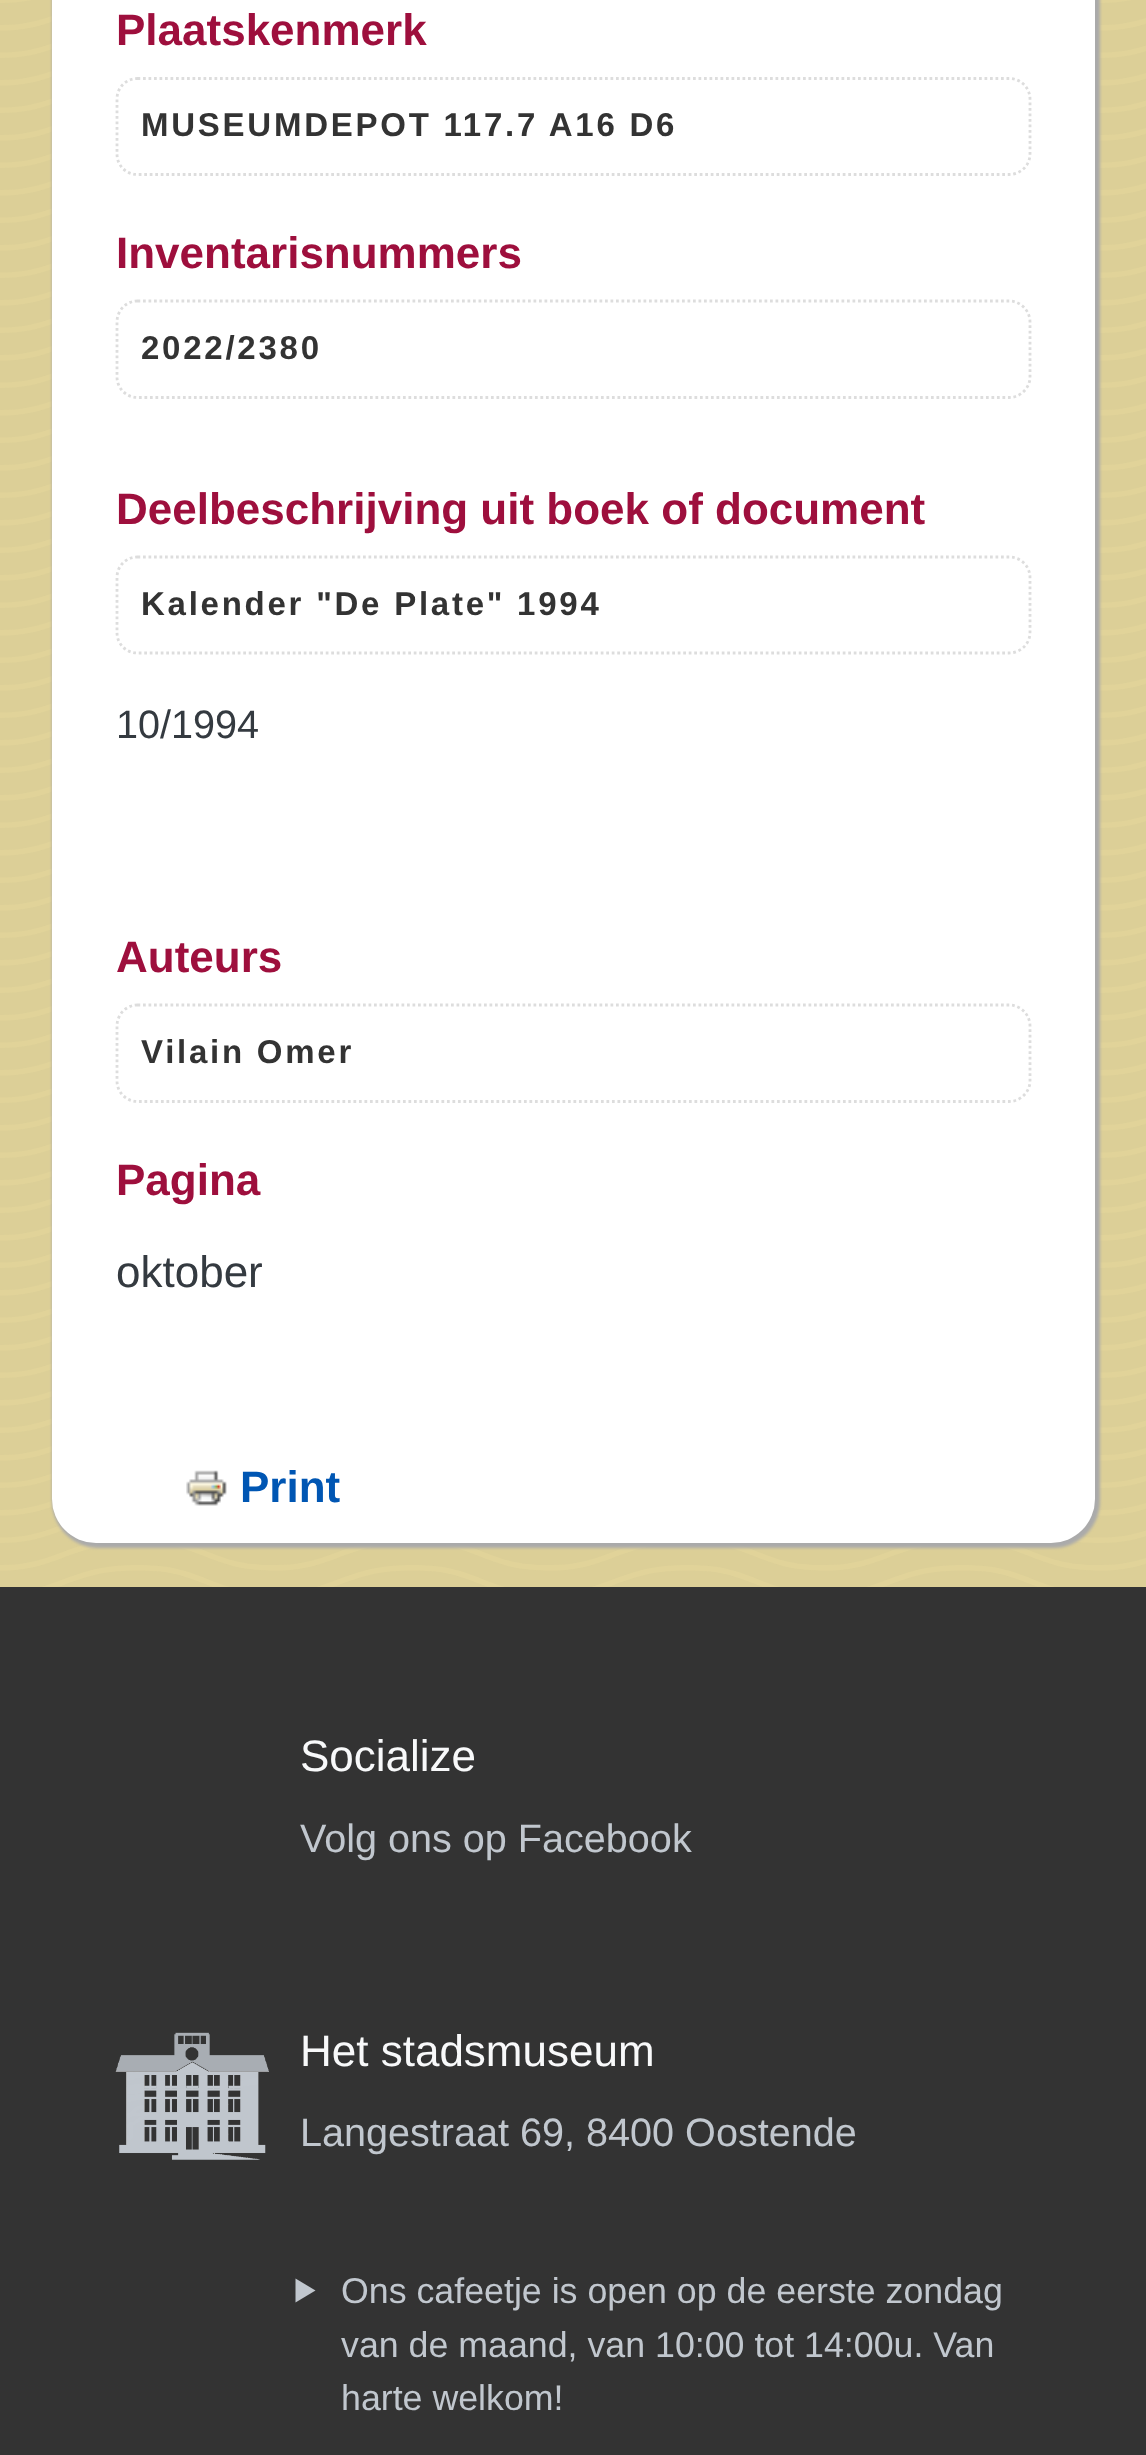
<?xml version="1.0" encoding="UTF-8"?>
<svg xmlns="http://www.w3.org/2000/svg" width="1146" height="2455">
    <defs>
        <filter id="blur1" x="-50%" y="-200%" width="200%" height="500%"><feGaussianBlur stdDeviation="1.5"/></filter>
    </defs>
    <rect width="100%" height="100%" fill="#DCCF97"/>
    <image x="0" y="0" width="1146" height="1587" href="img_01.png"/>
    <rect x="52" y="-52" width="1048" height="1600" rx="47" fill="#AAAAAA" filter="url(#blur1)"/>
    <rect x="52" y="-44" width="1043" height="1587" rx="44" fill="#FFFFFF"/>
    <text x="116" y="45" font-family="Liberation Sans" font-size="44" font-weight="700" fill="#9E0F3D">Plaatskenmerk</text>
    <path d="M 137.5 78.5 H 1009 C 1020.5 78.5 1030 87.5 1030 99 V 154 C 1030 165.5 1020.5 174.5 1009 174.5 H 137.5 C 126 174.5 117 165.5 117 154 V 99 C 117 87.5 126 78.5 137.5 78.5 Z" fill="none" stroke="#DDDDDD" stroke-width="2.8" stroke-dasharray="2.75 2.75"/>
    <text x="141" y="136" font-family="Liberation Sans" font-size="33" font-weight="700" letter-spacing="2.75" fill="#333333">MUSEUMDEPOT 117.7 A16 D6</text>
    <text x="116" y="268" font-family="Liberation Sans" font-size="44" font-weight="700" fill="#9E0F3D">Inventarisnummers</text>
    <path d="M 137.5 301 H 1009 C 1020.5 301 1030 310.5 1030 322 V 377 C 1030 388 1020.5 397.5 1009 397.5 H 137.5 C 126 397.5 117 388 117 377 V 322 C 117 310.5 126 301 137.5 301 Z" fill="none" stroke="#DDDDDD" stroke-width="2.8" stroke-dasharray="2.75 2.75"/>
    <text x="141" y="359" font-family="Liberation Sans" font-size="33" font-weight="700" letter-spacing="2.75" fill="#333333">2022/2380</text>
    <text x="116" y="524" font-family="Liberation Sans" font-size="44" font-weight="700" fill="#9E0F3D">Deelbeschrijving uit boek of document</text>
    <path d="M 137.5 557 H 1009 C 1020.5 557 1030 566 1030 577.5 V 632.5 C 1030 644 1020.5 653 1009 653 H 137.5 C 126 653 117 644 117 632.5 V 577.5 C 117 566 126 557 137.5 557 Z" fill="none" stroke="#DDDDDD" stroke-width="2.8" stroke-dasharray="2.75 2.75"/>
    <text x="141" y="615" font-family="Liberation Sans" font-size="33" font-weight="700" letter-spacing="2.75" fill="#333333">Kalender "De Plate" 1994</text>
    <text x="116" y="738" font-family="Liberation Sans" font-size="39.6" fill="#343A40">10/1994</text>
    <text x="116" y="972" font-family="Liberation Sans" font-size="44" font-weight="700" fill="#9E0F3D">Auteurs</text>
    <path d="M 137.5 1005 H 1009 C 1020.5 1005 1030 1014.5 1030 1026 V 1081 C 1030 1092 1020.5 1101.5 1009 1101.5 H 137.5 C 126 1101.5 117 1092 117 1081 V 1026 C 117 1014.5 126 1005 137.5 1005 Z" fill="none" stroke="#DDDDDD" stroke-width="2.8" stroke-dasharray="2.75 2.75"/>
    <text x="141" y="1063" font-family="Liberation Sans" font-size="33" font-weight="700" letter-spacing="2.75" fill="#333333">Vilain Omer</text>
    <text x="116" y="1195" font-family="Liberation Sans" font-size="44" font-weight="700" fill="#9E0F3D">Pagina</text>
    <text x="116" y="1287" font-family="Liberation Sans" font-size="44" fill="#343A40">oktober</text>
    <image x="186" y="1470" width="41" height="36" href="img_02.png"/>
    <text x="240" y="1502" font-family="Liberation Sans" font-size="44" font-weight="700" fill="#0056B3">Print</text>
    <rect x="0" y="1587" width="1146" height="868" fill="#333333"/>
    <text x="300" y="1771" font-family="Liberation Sans" font-size="44" fill="#F8F9FA">Socialize</text>
    <text x="300" y="1852" font-family="Liberation Sans" font-size="39.6" fill="#C1C7CE">Volg ons op Facebook</text>
    <image x="115" y="2032" width="154" height="128" href="img_03.png"/>
    <text x="300" y="2066" font-family="Liberation Sans" font-size="44" fill="#F8F9FA">Het stadsmuseum</text>
    <text x="300" y="2146" font-family="Liberation Sans" font-size="39.6" fill="#C1C7CE">Langestraat 69, 8400 Oostende</text>
    <path d="M 295.5 2278.5 L 315.5 2290.5 L 295.5 2302.5 Z" fill="#C1C7CE"/>
    <text font-family="Liberation Sans" font-size="35.75" fill="#C1C7CE">
        <tspan x="341" y="2303">Ons cafeetje is open op de eerste zondag</tspan>
        <tspan x="341" y="2357">van de maand, van 10:00 tot 14:00u. Van</tspan>
        <tspan x="341" y="2410">harte welkom!</tspan>
    </text>
</svg>
